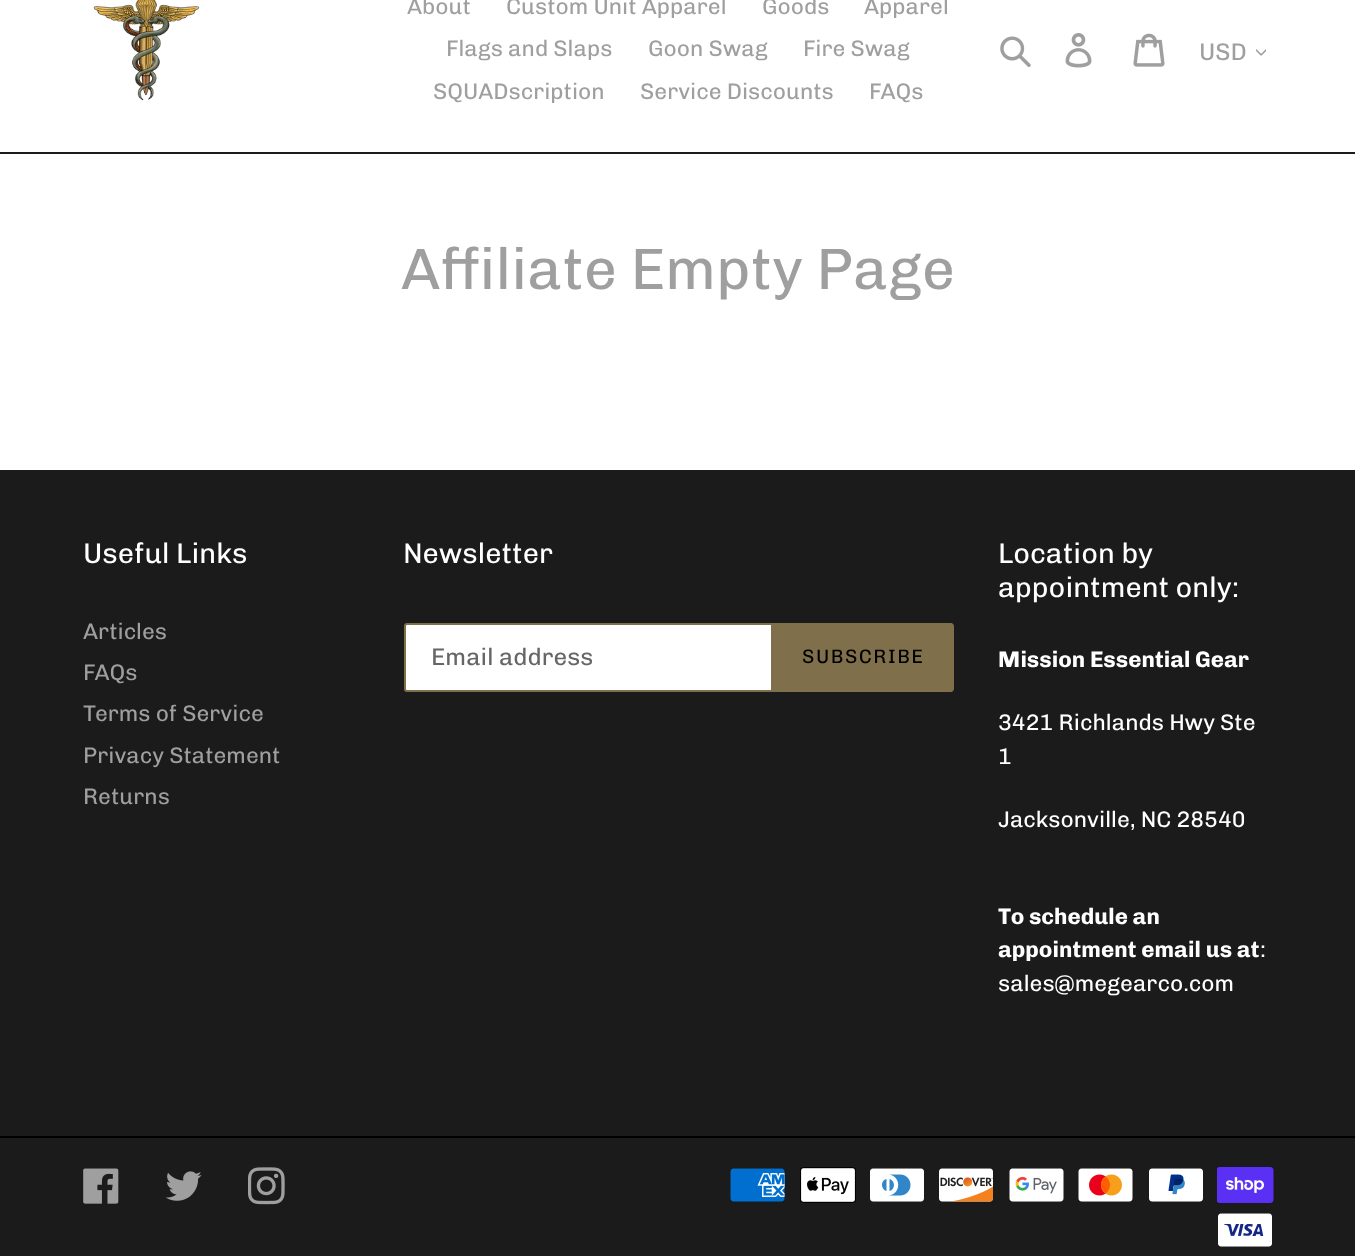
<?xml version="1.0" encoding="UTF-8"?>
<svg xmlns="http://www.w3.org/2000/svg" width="1355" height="1256">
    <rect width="100%" height="100%" fill="#FFFFFF"/>
    <rect x="0" y="152" width="1355" height="2" fill="#1B1B1B"/>
    <image x="93" y="0" width="107" height="101" href="img_01.png"/>
    <text x="407" y="14" font-family="Chivo" font-size="22.5" fill="#9F9F9F">About</text>
    <text x="506" y="14" font-family="Chivo" font-size="22.5" fill="#9F9F9F">Custom Unit Apparel</text>
    <text x="762" y="14" font-family="Chivo" font-size="22.5" fill="#9F9F9F">Goods</text>
    <text x="864" y="14" font-family="Chivo" font-size="22.5" fill="#9F9F9F">Apparel</text>
    <text x="446" y="56" font-family="Chivo" font-size="22.5" fill="#9F9F9F">Flags and Slaps</text>
    <text x="648" y="56" font-family="Chivo" font-size="22.5" fill="#9F9F9F">Goon Swag</text>
    <text x="803" y="56" font-family="Chivo" font-size="22.5" fill="#9F9F9F">Fire Swag</text>
    <text x="433" y="99" font-family="Chivo" font-size="22.5" fill="#9F9F9F">SQUADscription</text>
    <text x="640" y="99" font-family="Chivo" font-size="22.5" fill="#9F9F9F">Service Discounts</text>
    <text x="869" y="99" font-family="Chivo" font-size="22.5" fill="#9F9F9F">FAQs</text>
    <image x="1000" y="36" width="31" height="31" href="img_02.png"/>
    <image x="1065" y="33" width="27" height="35" href="img_03.png"/>
    <image x="1133" y="33" width="32" height="34" href="img_04.png"/>
    <text x="1199" y="60" font-family="Chivo" font-size="24" fill="#9F9F9F">USD</text>
    <image x="1256" y="49" width="10" height="7" href="img_05.png"/>
    <text x="401" y="289" font-family="Chivo" font-size="58.5" fill="#9F9F9F">Affiliate Empty Page</text>
    <rect x="0" y="470" width="1355" height="786" fill="#1B1B1B"/>
    <text x="83" y="563" font-family="Chivo" font-size="28.5" fill="#FFFFFF">Useful Links</text>
    <text font-family="Chivo" font-size="22.5" fill="#9F9F9F">
        <tspan x="83" y="639">Articles</tspan>
        <tspan x="83" y="680">FAQs</tspan>
        <tspan x="83" y="721">Terms of Service</tspan>
        <tspan x="83" y="763">Privacy Statement</tspan>
        <tspan x="83" y="804">Returns</tspan>
    </text>
    <text x="403" y="563" font-family="Chivo" font-size="28.5" fill="#FFFFFF">Newsletter</text>
    <path d="M 407 624 H 772 V 691 H 407 C 406 691 405 690 405 689 V 626 C 405 625 406 624 407 624 Z" fill="#FFFFFF" stroke="#7F6F4A" stroke-width="2"/>
    <text x="431" y="665" font-family="Chivo" font-size="24" fill="#666666">Email address</text>
    <path d="M 773 623 H 951 C 952.5 623 954 624.5 954 626 V 689 C 954 690.5 952.5 692 951 692 H 773 Z" fill="#7F6F4A"/>
    <text x="802" y="663" font-family="Chivo" font-size="19.5" letter-spacing="1.5" fill="#000000">SUBSCRIBE</text>
    <text font-family="Chivo" font-size="28.5" fill="#FFFFFF">
        <tspan x="998" y="563">Location by</tspan>
        <tspan x="998" y="597">appointment only:</tspan>
    </text>
    <text x="998" y="667" font-family="Chivo" font-size="22.5" font-weight="700" fill="#FFFFFF">Mission Essential Gear</text>
    <text font-family="Chivo" font-size="22.5" fill="#FFFFFF">
        <tspan x="998" y="730">3421 Richlands Hwy Ste</tspan>
        <tspan x="998" y="764">1</tspan>
    </text>
    <text x="998" y="827" font-family="Chivo" font-size="22.5" fill="#FFFFFF">Jacksonville, NC 28540</text>
    <text font-family="Chivo" font-size="22.5" font-weight="700" fill="#FFFFFF">
        <tspan x="998" y="924">To schedule an</tspan>
        <tspan x="998" y="957">appointment email us at</tspan>
    </text>
    <text x="1260" y="957" font-family="Chivo" font-size="22.5" fill="#FFFFFF">:</text>
    <text x="998" y="991" font-family="Chivo" font-size="22.5" fill="#FFFFFF">sales@megearco.com</text>
    <rect x="0" y="1136" width="1355" height="2" fill="#010101"/>
    <image x="83" y="1168" width="36" height="36" href="img_06.png"/>
    <image x="165" y="1171" width="37" height="30" href="img_07.png"/>
    <image x="248" y="1167" width="37" height="38" href="img_08.png"/>
    <image x="730" y="1168" width="55" height="34" href="img_09.png"/>
    <image x="800" y="1167" width="56" height="36" href="img_10.png"/>
    <image x="870" y="1168" width="54" height="34" href="img_11.png"/>
    <image x="939" y="1168" width="55" height="34" href="img_12.png"/>
    <image x="1009" y="1168" width="55" height="34" href="img_13.png"/>
    <image x="1078" y="1168" width="55" height="34" href="img_14.png"/>
    <image x="1149" y="1168" width="54" height="34" href="img_15.png"/>
    <image x="1217" y="1167" width="57" height="36" href="img_16.png"/>
    <image x="1218" y="1213" width="54" height="34" href="img_17.png"/>
</svg>
